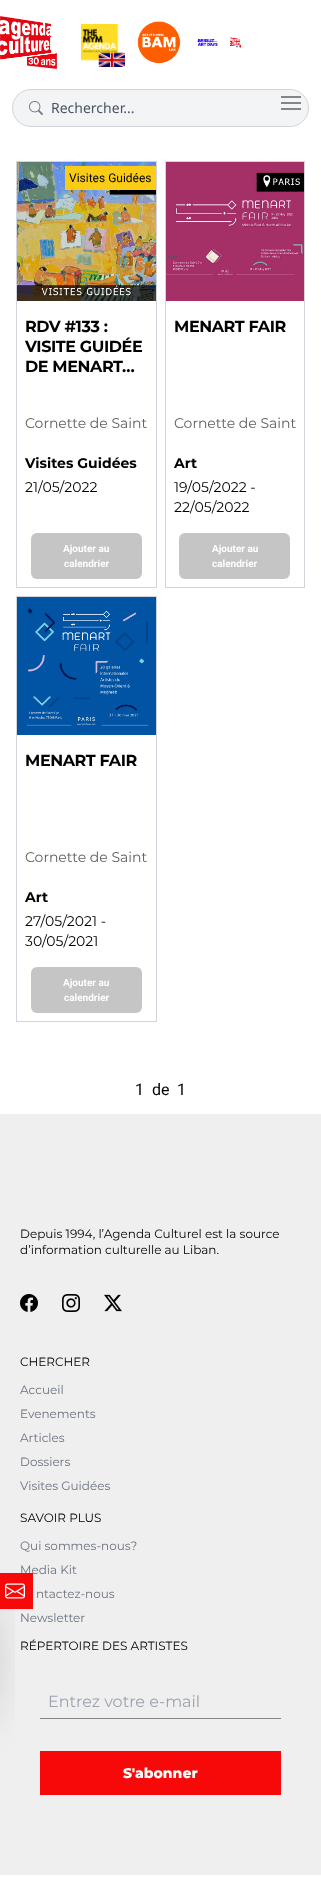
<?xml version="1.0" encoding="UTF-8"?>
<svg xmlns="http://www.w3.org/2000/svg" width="321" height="1901">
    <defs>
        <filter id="blur1" x="-50%" y="-200%" width="200%" height="500%"><feGaussianBlur stdDeviation="25"/></filter>
    </defs>
    <rect width="100%" height="100%" fill="#FFFFFF"/>
    <rect x="12.5" y="89.5" width="296" height="37" rx="18.5" fill="#F3F4F6" stroke="#D1D5DB"/>
    <rect x="281" y="96" width="20" height="2" fill="#858585"/>
    <rect x="281" y="102" width="20" height="2" fill="#858585"/>
    <rect x="281" y="108" width="20" height="2" fill="#858585"/>
    <image x="0" y="16" width="57" height="53" href="img_01.png"/>
    <image x="81" y="24" width="44" height="43" href="img_02.png"/>
    <image x="137" y="21" width="44" height="43" href="img_03.png"/>
    <image x="197" y="39" width="21" height="7" href="img_04.png"/>
    <image x="230" y="37" width="11" height="11" href="img_05.png"/>
    <image x="29" y="101" width="14" height="14" href="img_06.png"/>
    <text x="51" y="113" font-family="Noto Sans" font-size="14" fill="#4B5563">Rechercher...</text>
    <rect x="16.5" y="161.5" width="140" height="426" fill="none" stroke="#D1D5DB"/>
    <image x="17" y="162" width="139" height="139" href="img_07.png"/>
    <rect x="65" y="166" width="91" height="24" fill="#FACC15"/>
    <text x="69" y="182" font-family="Roboto" font-size="12" fill="#000000">Visites Guidées</text>
    <text font-family="Montserrat" font-size="16" font-weight="700" letter-spacing="-0.4" fill="#000000">
        <tspan x="25" y="332">RDV #133 :</tspan>
        <tspan x="25" y="352">VISITE GUIDÉE</tspan>
        <tspan x="25" y="372">DE MENART…</tspan>
    </text>
    <text x="25" y="428" font-family="Montserrat" font-size="14" fill="#616161">Cornette de Saint</text>
    <text x="25" y="468" font-family="Montserrat" font-size="14" font-weight="700" fill="#000000">Visites Guidées</text>
    <text x="25" y="492" font-family="Montserrat" font-size="14" fill="#000000">21/05/2022</text>
    <rect x="31" y="533" width="111" height="46" rx="6" fill="#C5C5C5"/>
    <text x="63" y="552" font-family="Roboto" font-size="10" font-weight="700" fill="#FFFFFF">Ajouter au</text>
    <text x="64" y="567" font-family="Roboto" font-size="10" font-weight="700" fill="#FFFFFF">calendrier</text>
    <rect x="165.5" y="161.5" width="139" height="426" fill="none" stroke="#D1D5DB"/>
    <image x="166" y="162" width="138" height="139" href="img_08.png"/>
    <text x="174" y="332" font-family="Montserrat" font-size="16" font-weight="700" letter-spacing="-0.4" fill="#000000">MENART FAIR</text>
    <text x="174" y="428" font-family="Montserrat" font-size="14" fill="#616161">Cornette de Saint</text>
    <text x="174" y="468" font-family="Montserrat" font-size="14" font-weight="700" fill="#000000">Art</text>
    <text font-family="Montserrat" font-size="14" fill="#000000">
        <tspan x="174" y="492">19/05/2022 -</tspan>
        <tspan x="174" y="512">22/05/2022</tspan>
    </text>
    <rect x="179" y="533" width="111" height="46" rx="6" fill="#C5C5C5"/>
    <text font-family="Roboto" font-size="10" font-weight="700" fill="#FFFFFF">
        <tspan x="212" y="552">Ajouter au</tspan>
        <tspan x="212" y="567">calendrier</tspan>
    </text>
    <rect x="16.5" y="596.5" width="140" height="425" fill="none" stroke="#D1D5DB"/>
    <image x="17" y="597" width="139" height="138" href="img_09.png"/>
    <text x="25" y="766" font-family="Montserrat" font-size="16" font-weight="700" letter-spacing="-0.4" fill="#000000">MENART FAIR</text>
    <text x="25" y="862" font-family="Montserrat" font-size="14" fill="#616161">Cornette de Saint</text>
    <text x="25" y="902" font-family="Montserrat" font-size="14" font-weight="700" fill="#000000">Art</text>
    <text font-family="Montserrat" font-size="14" fill="#000000">
        <tspan x="25" y="926">27/05/2021 -</tspan>
        <tspan x="25" y="946">30/05/2021</tspan>
    </text>
    <rect x="31" y="967" width="111" height="46" rx="6" fill="#C5C5C5"/>
    <text x="63" y="986" font-family="Roboto" font-size="10" font-weight="700" fill="#FFFFFF">Ajouter au</text>
    <text x="64" y="1001" font-family="Roboto" font-size="10" font-weight="700" fill="#FFFFFF">calendrier</text>
    <text x="135" y="1095" font-family="Roboto" font-size="16" fill="#000000">1</text>
    <text x="152" y="1095" font-family="Roboto" font-size="16" fill="#000000">de</text>
    <text x="177" y="1095" font-family="Roboto" font-size="16" fill="#000000">1</text>
    <rect x="0" y="1114" width="321" height="761" fill="#EFEFEF"/>
    <text font-family="Montserrat" font-size="12" fill="#000000">
        <tspan x="20" y="1238">Depuis 1994, l’Agenda Culturel est la source</tspan>
        <tspan x="20" y="1254">d’information culturelle au Liban.</tspan>
    </text>
    <image x="20" y="1294" width="18" height="18" href="img_10.png"/>
    <image x="62" y="1294" width="18" height="18" href="img_11.png"/>
    <image x="104" y="1294" width="18" height="18" href="img_12.png"/>
    <text x="20" y="1366" font-family="Montserrat" font-size="12" fill="#000000">CHERCHER</text>
    <text x="20" y="1394" font-family="Montserrat" font-size="12" fill="#6B7280">Accueil</text>
    <text x="20" y="1418" font-family="Montserrat" font-size="12" fill="#6B7280">Evenements</text>
    <text x="20" y="1442" font-family="Montserrat" font-size="12" fill="#6B7280">Articles</text>
    <text x="20" y="1466" font-family="Montserrat" font-size="12" fill="#6B7280">Dossiers</text>
    <text x="20" y="1490" font-family="Montserrat" font-size="12" fill="#6B7280">Visites Guidées</text>
    <text x="20" y="1522" font-family="Montserrat" font-size="12" fill="#000000">SAVOIR PLUS</text>
    <text x="20" y="1550" font-family="Montserrat" font-size="12" fill="#6B7280">Qui sommes-nous?</text>
    <text x="20" y="1574" font-family="Montserrat" font-size="12" fill="#6B7280">Media Kit</text>
    <text x="36" y="1598" font-family="Montserrat" font-size="12" fill="#6B7280">ntactez-nous</text>
    <text x="20" y="1622" font-family="Montserrat" font-size="12" fill="#6B7280">Newsletter</text>
    <text x="20" y="1650" font-family="Montserrat" font-size="12" fill="#000000">RÉPERTOIRE DES ARTISTES</text>
    <rect x="40" y="1718" width="241" height="1" fill="#858585"/>
    <text x="48" y="1707" font-family="Montserrat" font-size="16" fill="#9CA3AF">Entrez votre e-mail</text>
    <rect x="40" y="1751" width="241" height="44" fill="#F70909"/>
    <text x="123" y="1778" font-family="Montserrat" font-size="14" font-weight="800" fill="#FFFFFF">S'abonner</text>
    <rect x="-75" y="1610" width="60" height="100" fill="#000000" fill-opacity="0.25" filter="url(#blur1)"/>
    <rect x="0" y="1573" width="33" height="36" fill="#F70909"/>
    <image x="5" y="1583" width="20" height="16" href="img_13.png"/>
</svg>
